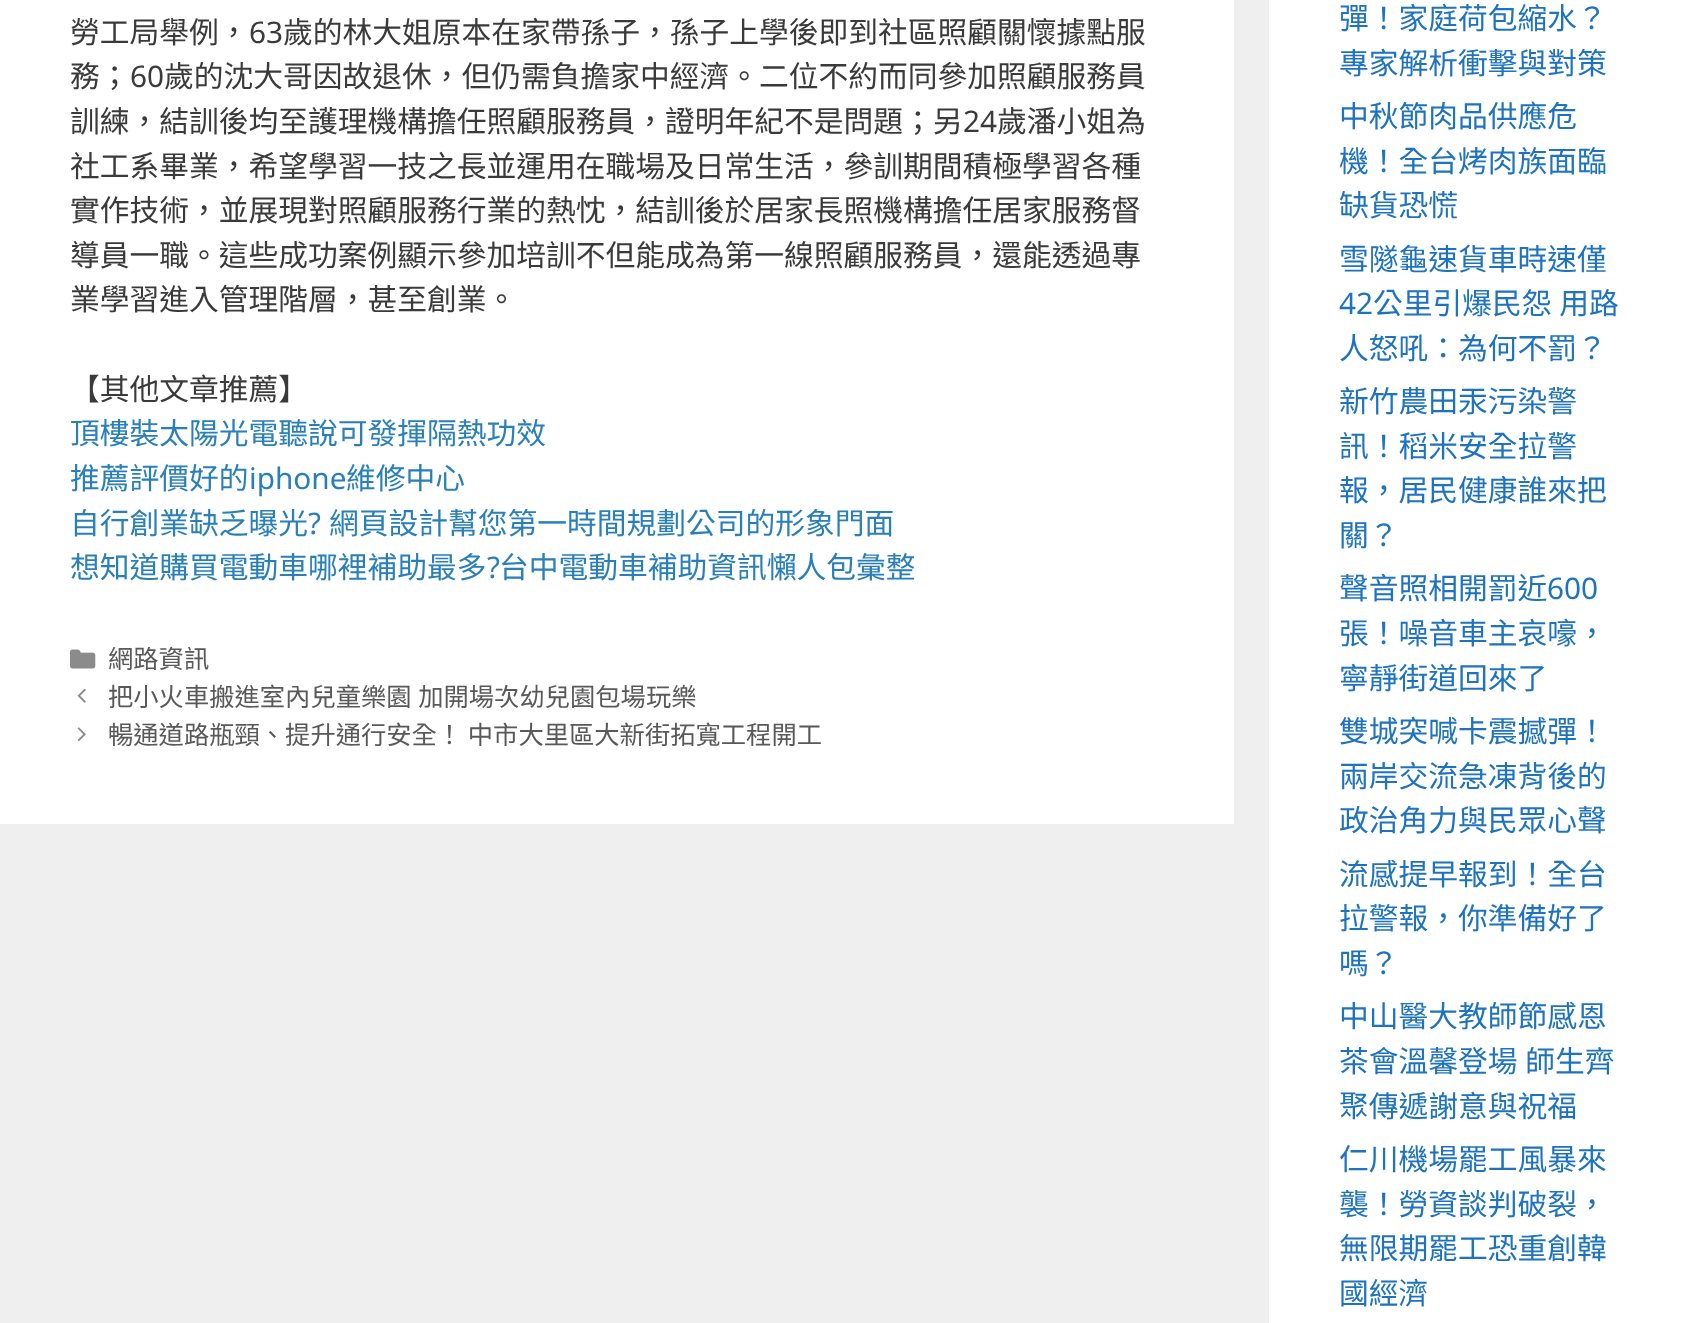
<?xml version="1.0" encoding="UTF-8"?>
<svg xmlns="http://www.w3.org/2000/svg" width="1692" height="1323">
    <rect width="100%" height="100%" fill="#EFEFEF"/>
    <rect x="0" y="0" width="1234" height="824" fill="#FFFFFF"/>
    <text x="70" y="43" font-family="Noto Sans CJK TC" font-size="29.75" fill="#3A3A3A">勞工局舉例，</text>
    <text x="249" y="43" font-family="Noto Sans" font-size="29.75" fill="#3A3A3A">63</text>
    <text x="283" y="43" font-family="Noto Sans CJK TC" font-size="29.75" fill="#3A3A3A">歲的林大姐原本在家帶孫子，孫子上學後即到社區照顧關懷據點服</text>
    <text x="70" y="87" font-family="Noto Sans CJK TC" font-size="29.75" fill="#3A3A3A">務；</text>
    <text x="130" y="87" font-family="Noto Sans" font-size="29.75" fill="#3A3A3A">60</text>
    <text x="164" y="87" font-family="Noto Sans CJK TC" font-size="29.75" fill="#3A3A3A">歲的沈大哥因故退休，但仍需負擔家中經濟。二位不約而同參加照顧服務員</text>
    <text x="70" y="132" font-family="Noto Sans CJK TC" font-size="29.75" fill="#3A3A3A">訓練，結訓後均至護理機構擔任照顧服務員，證明年紀不是問題；另</text>
    <text x="963" y="132" font-family="Noto Sans" font-size="29.75" fill="#3A3A3A">24</text>
    <text x="997" y="132" font-family="Noto Sans CJK TC" font-size="29.75" fill="#3A3A3A">歲潘小姐為</text>
    <text font-family="Noto Sans CJK TC" font-size="29.75" fill="#3A3A3A">
        <tspan x="70" y="177">社工系畢業，希望學習一技之長並運用在職場及日常生活，參訓期間積極學習各種</tspan>
        <tspan x="70" y="221">實作技術，並展現對照顧服務行業的熱忱，結訓後於居家長照機構擔任居家服務督</tspan>
        <tspan x="70" y="266">導員一職。這些成功案例顯示參加培訓不但能成為第一線照顧服務員，還能透過專</tspan>
        <tspan x="70" y="310">業學習進入管理階層，甚至創業。</tspan>
    </text>
    <text x="70" y="400" font-family="Noto Sans CJK TC" font-size="29.75" fill="#3A3A3A">【其他文章推薦】</text>
    <text font-family="Noto Sans CJK TC" font-size="29.75" fill="#2980B9">
        <tspan x="70" y="444">頂樓裝太陽光電聽說可發揮隔熱功效</tspan>
        <tspan x="70" y="489">推薦評價好的</tspan>
    </text>
    <text x="249" y="489" font-family="Noto Sans" font-size="29.75" fill="#2980B9">iphone</text>
    <text x="346" y="489" font-family="Noto Sans CJK TC" font-size="29.75" fill="#2980B9">維修中心</text>
    <text x="70" y="534" font-family="Noto Sans CJK TC" font-size="29.75" fill="#2980B9">自行創業缺乏曝光</text>
    <text x="308" y="534" font-family="Noto Sans" font-size="29.75" fill="#2980B9">?</text>
    <text x="329" y="534" font-family="Noto Sans CJK TC" font-size="29.75" fill="#2980B9">網頁設計幫您第一時間規劃公司的形象門面</text>
    <text x="70" y="578" font-family="Noto Sans CJK TC" font-size="29.75" fill="#2980B9">想知道購買電動車哪裡補助最多</text>
    <text x="487" y="578" font-family="Noto Sans" font-size="29.75" fill="#2980B9">?</text>
    <text x="499" y="578" font-family="Noto Sans CJK TC" font-size="29.75" fill="#2980B9">台中電動車補助資訊懶人包彙整</text>
    <image x="70" y="649" width="26" height="20" href="img_01.png"/>
    <text x="108" y="668" font-family="Noto Sans CJK TC" font-size="25.3" fill="#595959">網路資訊</text>
    <image x="77" y="688" width="9" height="15" href="img_02.png"/>
    <text x="108" y="706" word-spacing="1" font-family="Noto Sans CJK TC" font-size="25.3" fill="#595959">把小火車搬進室內兒童樂園 加開場次幼兒園包場玩樂</text>
    <image x="77" y="727" width="9" height="15" href="img_03.png"/>
    <text x="108" y="744" font-family="Noto Sans CJK TC" font-size="25.3" fill="#595959">暢通道路瓶頸、提升通行安全！ 中市大里區大新街拓寬工程開工</text>
    <rect x="1269" y="0" width="423" height="1323" fill="#FFFFFF"/>
    <text font-family="Noto Sans CJK TC" font-size="29.75" fill="#1E73BE">
        <tspan x="1339" y="29">彈！家庭荷包縮水？</tspan>
        <tspan x="1339" y="74">專家解析衝擊與對策</tspan>
        <tspan x="1339" y="127">中秋節肉品供應危</tspan>
        <tspan x="1339" y="172">機！全台烤肉族面臨</tspan>
        <tspan x="1339" y="216">缺貨恐慌</tspan>
        <tspan x="1339" y="270">雪隧龜速貨車時速僅</tspan>
    </text>
    <text x="1339" y="314" font-family="Noto Sans" font-size="29.75" fill="#1E73BE">42</text>
    <text x="1373" y="314" word-spacing="1" font-family="Noto Sans CJK TC" font-size="29.75" fill="#1E73BE">公里引爆民怨 用路</text>
    <text font-family="Noto Sans CJK TC" font-size="29.75" fill="#1E73BE">
        <tspan x="1339" y="359">人怒吼：為何不罰？</tspan>
        <tspan x="1339" y="412">新竹農田汞污染警</tspan>
        <tspan x="1339" y="457">訊！稻米安全拉警</tspan>
        <tspan x="1339" y="501">報，居民健康誰來把</tspan>
        <tspan x="1339" y="546">關？</tspan>
        <tspan x="1339" y="599">聲音照相開罰近</tspan>
    </text>
    <text x="1547" y="599" font-family="Noto Sans" font-size="29.75" fill="#1E73BE">600</text>
    <text font-family="Noto Sans CJK TC" font-size="29.75" fill="#1E73BE">
        <tspan x="1339" y="644">張！噪音車主哀嚎，</tspan>
        <tspan x="1339" y="689">寧靜街道回來了</tspan>
        <tspan x="1339" y="742">雙城突喊卡震撼彈！</tspan>
        <tspan x="1339" y="787">兩岸交流急凍背後的</tspan>
        <tspan x="1339" y="831">政治角力與民眾心聲</tspan>
        <tspan x="1339" y="885">流感提早報到！全台</tspan>
        <tspan x="1339" y="929">拉警報，你準備好了</tspan>
        <tspan x="1339" y="974">嗎？</tspan>
        <tspan x="1339" y="1027">中山醫大教師節感恩</tspan>
        <tspan x="1339" y="1072" word-spacing="1">茶會溫馨登場 師生齊</tspan>
        <tspan x="1339" y="1117">聚傳遞謝意與祝福</tspan>
        <tspan x="1339" y="1170">仁川機場罷工風暴來</tspan>
        <tspan x="1339" y="1215">襲！勞資談判破裂，</tspan>
        <tspan x="1339" y="1259">無限期罷工恐重創韓</tspan>
        <tspan x="1339" y="1304">國經濟</tspan>
    </text>
</svg>
